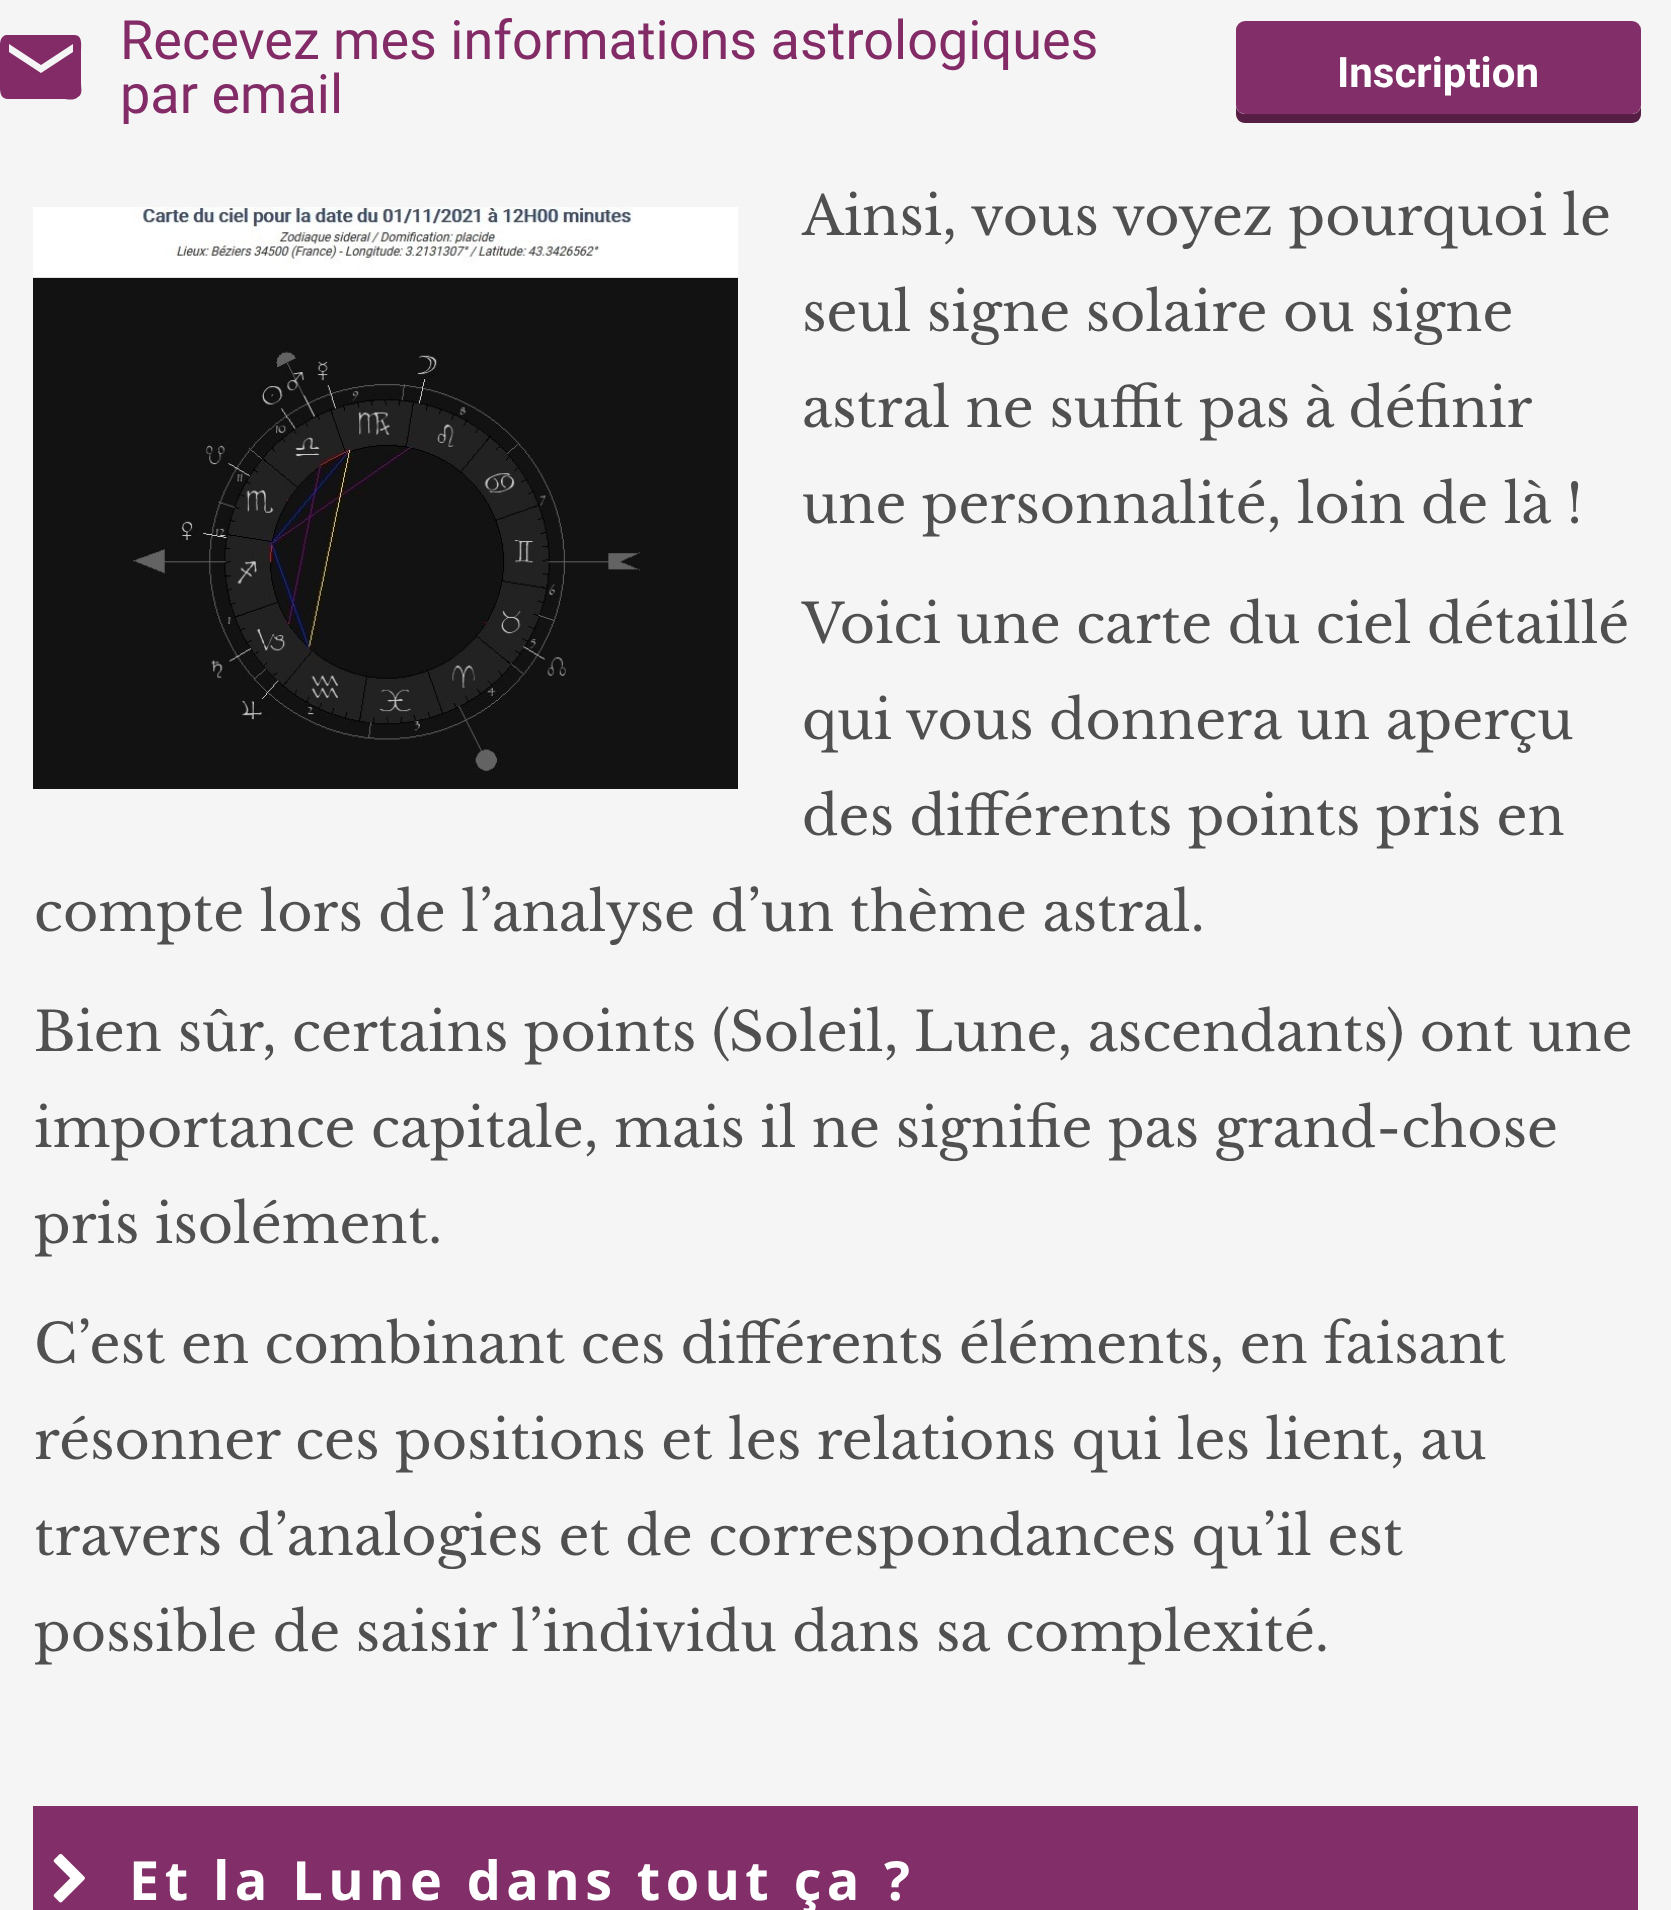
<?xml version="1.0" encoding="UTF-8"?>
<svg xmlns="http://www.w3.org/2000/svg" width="1671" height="1910">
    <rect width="100%" height="100%" fill="#F5F5F5"/>
    <path d="M 74 35 C 83 35 81 45 81 51 V 83 C 81 88 83 94 78 97 C 74 101 67 99 63 99 H 8 C -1 99 0 89 0 83 V 51 C 0 45 -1 37 6 35 Z M 73 52 V 44 L 41 65 L 9 44 V 52 L 41 73 Z" fill="#822B66"/>
    <text font-family="Roboto" font-size="54" fill="#822B66">
        <tspan x="120" y="59">Recevez mes informations astrologiques</tspan>
        <tspan x="120" y="113">par email</tspan>
    </text>
    <path d="M 1236 105 V 114 C 1236 119 1240 123 1245 123 H 1632 C 1637 123 1641 119 1641 114 V 105 C 1641 110 1637 114 1632 114 H 1245 C 1240 114 1236 110 1236 105 Z" fill="#571E45"/>
    <rect x="1236" y="21" width="405" height="93" rx="9" fill="#822E68"/>
    <text x="1337" y="87" font-family="Roboto" font-size="42" font-weight="700" fill="#FFFFFF">Inscription</text>
    <image x="33" y="207" width="705" height="582" href="img_01.png"/>
    <text font-family="Libre Baskerville" font-size="54" fill="#505050">
        <tspan x="802" y="235">Ainsi, vous voyez pourquoi le</tspan>
        <tspan x="802" y="331">seul signe solaire ou signe</tspan>
        <tspan x="802" y="427">astral ne suffit</tspan>
    </text>
    <text x="1199" y="427" word-spacing="-1" font-family="Libre Baskerville" font-size="54" fill="#505050">pas à définir</text>
    <text x="802" y="523" font-family="Libre Baskerville" font-size="54" fill="#505050">une personnalité, loin de là !</text>
    <text font-family="Libre Baskerville" font-size="54" fill="#505050">
        <tspan x="802" y="643">Voici une carte du ciel détaillé</tspan>
        <tspan x="802" y="739">qui vous donnera un aperçu</tspan>
        <tspan x="802" y="835">des différents points pris en</tspan>
    </text>
    <text x="34" y="931" font-family="Libre Baskerville" font-size="54" fill="#505050">compte lors de l’analyse d’un thème astral.</text>
    <text font-family="Libre Baskerville" font-size="54" fill="#505050">
        <tspan x="34" y="1051">Bien sûr, certains points (Soleil, Lune, ascendants) ont une</tspan>
        <tspan x="34" y="1147">importance capitale, mais il ne signifie pas grand-chose</tspan>
        <tspan x="34" y="1243">pris isolément.</tspan>
    </text>
    <text font-family="Libre Baskerville" font-size="54" fill="#505050">
        <tspan x="34" y="1363">C’est en combinant ces différents éléments, en faisant</tspan>
        <tspan x="34" y="1459">résonner ces positions et les relations qui les lient, au</tspan>
        <tspan x="34" y="1555">travers d’analogies et de correspondances qu’il est</tspan>
        <tspan x="34" y="1651">possible de saisir l’individu dans sa complexité.</tspan>
    </text>
    <rect x="33" y="1806" width="1605" height="104" fill="#822E68"/>
    <image x="53" y="1853" width="32" height="50" href="img_02.png"/>
    <text x="129" y="1900" font-family="Open Sans" font-size="54" font-weight="700" letter-spacing="5.4" fill="#FFFFFF">Et la Lune dans tout ça ?</text>
</svg>
